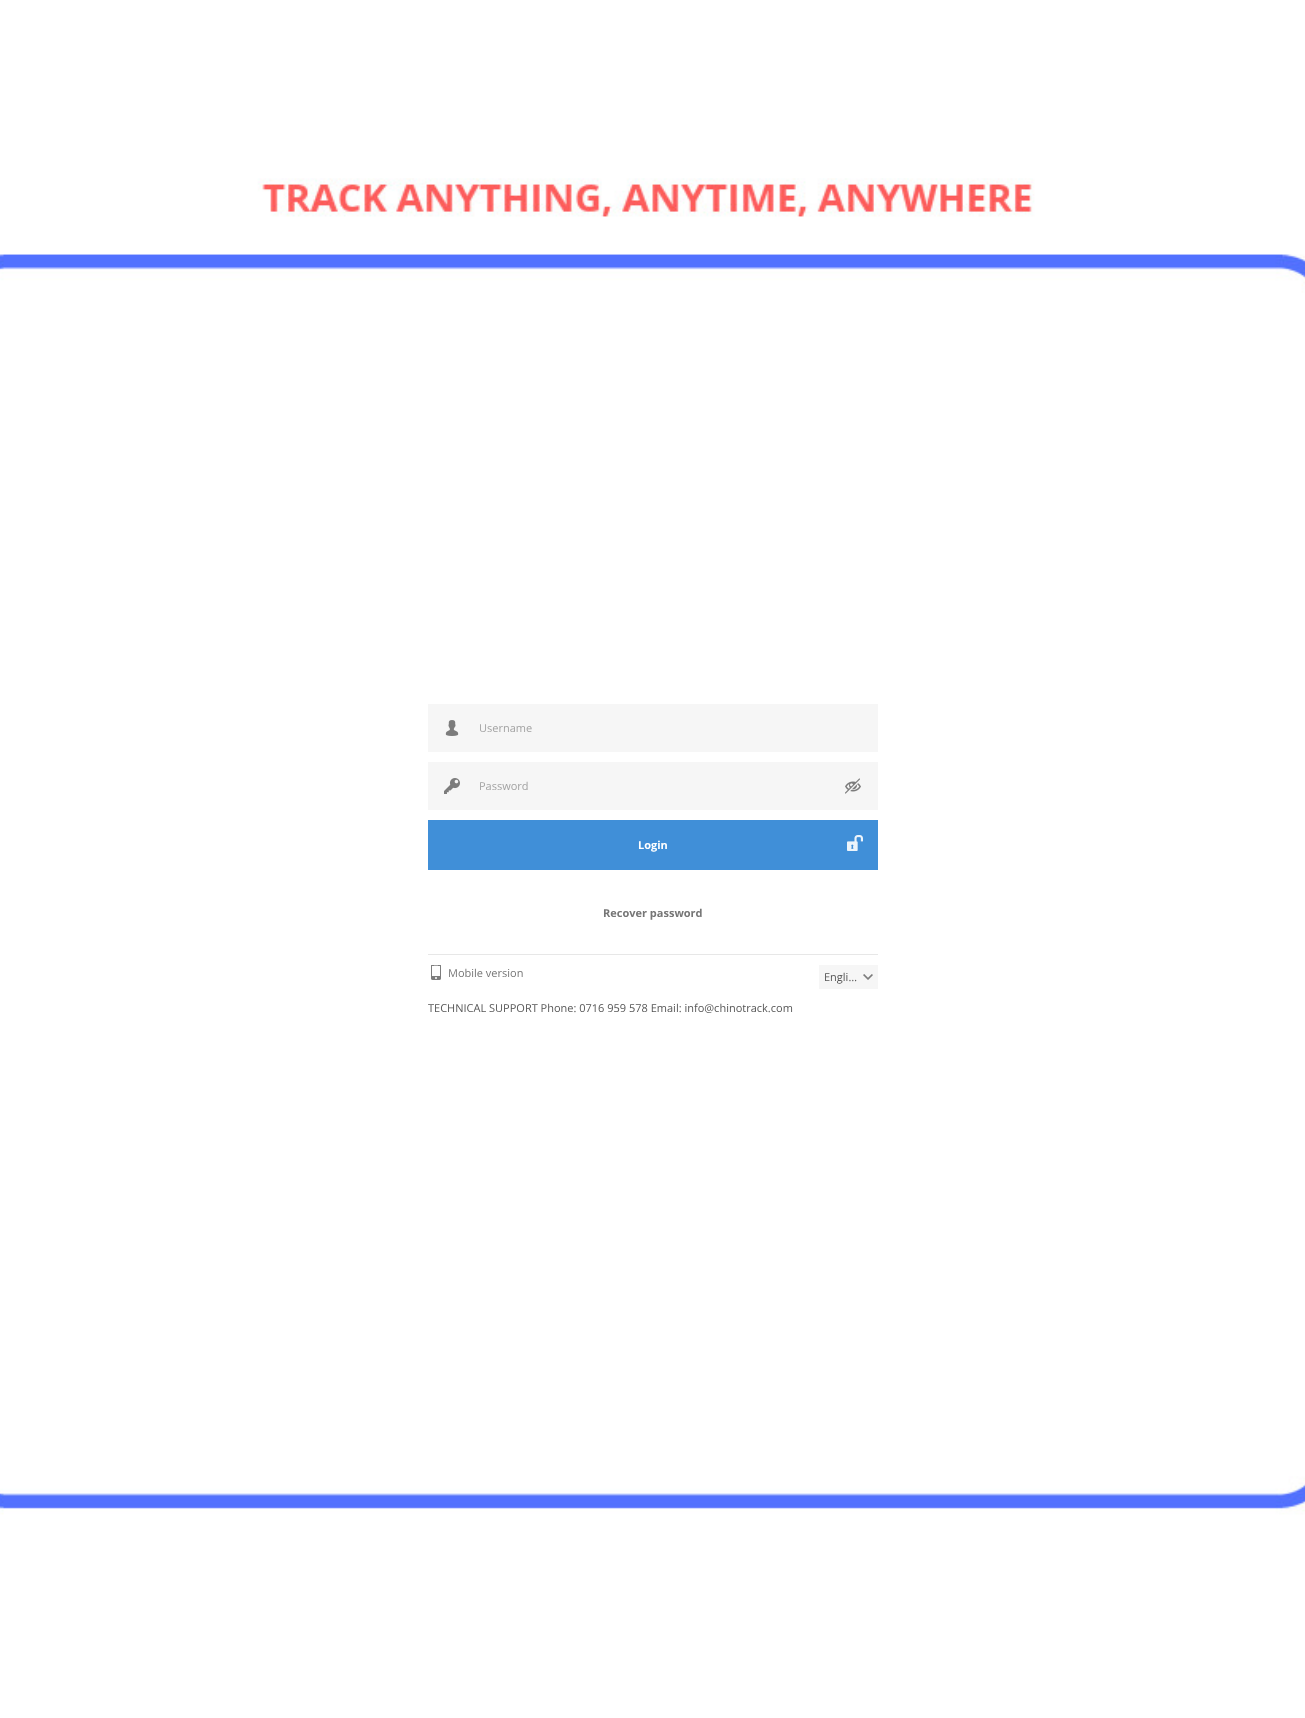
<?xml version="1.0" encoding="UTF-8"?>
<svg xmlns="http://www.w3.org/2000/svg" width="1305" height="1718">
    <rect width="100%" height="100%" fill="#FFFFFF"/>
    <image x="0" y="178" width="1305" height="1337" href="img_01.png"/>
    <rect x="428" y="704" width="450" height="48" fill="#F6F6F6"/>
    <image x="445" y="720" width="14" height="16" href="img_02.png"/>
    <text x="479" y="732" font-family="Open Sans" font-size="11" fill="#A3A3A3">Username</text>
    <rect x="428" y="762" width="450" height="48" fill="#F6F6F6"/>
    <image x="444" y="778" width="16" height="16" href="img_03.png"/>
    <text x="479" y="790" font-family="Open Sans" font-size="11" fill="#A3A3A3">Password</text>
    <image x="845" y="778" width="16" height="16" href="img_04.png"/>
    <rect x="428" y="820" width="450" height="50" fill="#408FD8"/>
    <text x="638" y="849" font-family="Open Sans" font-size="11" font-weight="700" fill="#FFFFFF">Login</text>
    <image x="847" y="835" width="16" height="16" href="img_05.png"/>
    <text x="603" y="917" font-family="Open Sans" font-size="11" font-weight="700" fill="#767676">Recover password</text>
    <rect x="428" y="954" width="450" height="1" fill="#E7E7E7"/>
    <image x="431" y="965" width="10" height="15" href="img_06.png"/>
    <text x="448" y="977" font-family="Open Sans" font-size="11" fill="#767676">Mobile version</text>
    <rect x="819" y="965" width="59" height="24" fill="#F6F6F6"/>
    <text x="824" y="981" font-family="Open Sans" font-size="11" fill="#575757">Engli…</text>
    <image x="863" y="974" width="10" height="6" href="img_07.png"/>
    <text x="428" y="1012" font-family="Open Sans" font-size="11" fill="#575757">TECHNICAL SUPPORT Phone: 0716 959 578 Email: info@chinotrack.com</text>
</svg>
